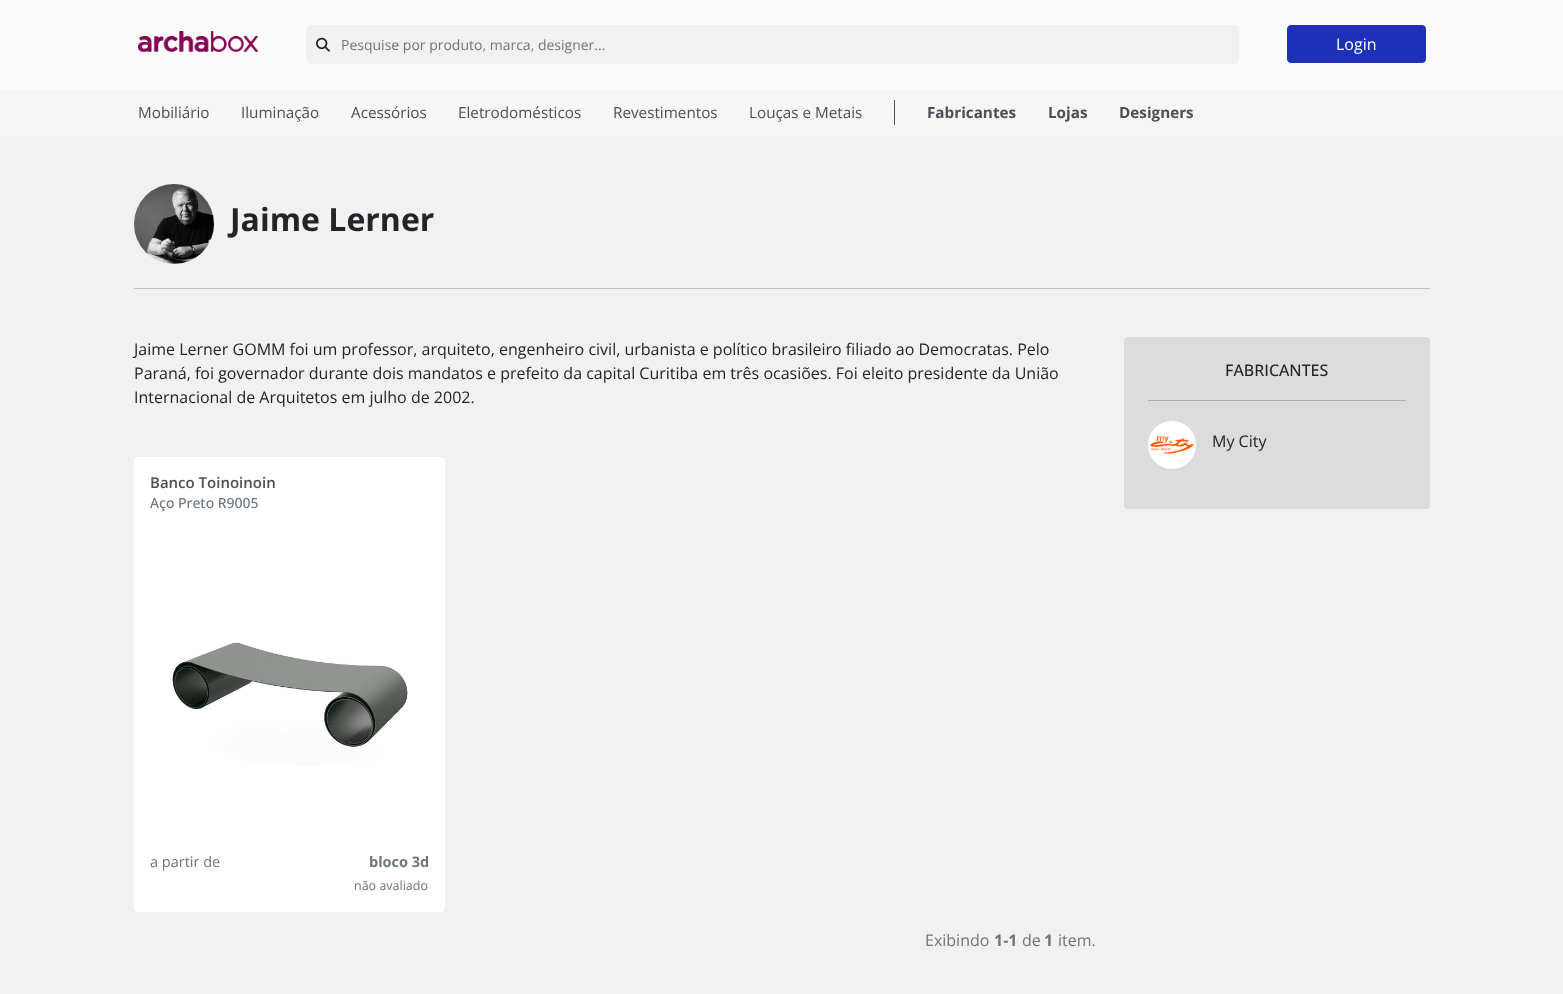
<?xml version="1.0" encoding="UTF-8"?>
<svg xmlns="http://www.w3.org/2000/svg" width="1563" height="994">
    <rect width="100%" height="100%" fill="#F1F1F2"/>
    <rect x="0" y="0" width="1563" height="89" fill="#FBFBFB"/>
    <image x="138" y="31" width="120" height="21" href="img_01.png"/>
    <rect x="306" y="25" width="933" height="39" rx="5" fill="#F1F1F2"/>
    <image x="316" y="37" width="14" height="15" href="img_02.png"/>
    <text x="341" y="50" font-family="Open Sans" font-size="14" fill="#6C757D">Pesquise por produto, marca, designer...</text>
    <rect x="1287.5" y="25.5" width="138" height="37" rx="3.5" fill="#1E30B7" stroke="#1E30B7"/>
    <text x="1336" y="50" font-family="Open Sans" font-size="16" fill="#FFFFFF">Login</text>
    <rect x="0" y="89" width="1563" height="47" fill="#F6F6F6"/>
    <text x="138" y="118" font-family="Open Sans" font-size="15.25" fill="#495057">Mobiliário</text>
    <text x="241" y="118" font-family="Open Sans" font-size="15.25" fill="#495057">Iluminação</text>
    <text x="351" y="118" font-family="Open Sans" font-size="15.25" fill="#495057">Acessórios</text>
    <text x="458" y="118" font-family="Open Sans" font-size="15.25" fill="#495057">Eletrodomésticos</text>
    <text x="613" y="118" font-family="Open Sans" font-size="15.25" fill="#495057">Revestimentos</text>
    <text x="749" y="118" font-family="Open Sans" font-size="15.25" fill="#495057">Louças e Metais</text>
    <rect x="894" y="100" width="1" height="25" fill="#495057"/>
    <text x="927" y="118" font-family="Open Sans" font-size="15.25" font-weight="700" fill="#495057">Fabricantes</text>
    <text x="1048" y="118" font-family="Open Sans" font-size="15.25" font-weight="700" fill="#495057">Lojas</text>
    <text x="1119" y="118" font-family="Open Sans" font-size="15.25" font-weight="700" fill="#495057">Designers</text>
    <circle cx="174" cy="224" r="40" fill="#CED4DA"/>
    <image x="134" y="184" width="80" height="80" href="img_03.png"/>
    <text x="230" y="231" font-family="Open Sans" font-size="32" font-weight="700" fill="#212529">Jaime Lerner</text>
    <rect x="134" y="288" width="1296" height="1" fill="#BDBEC0"/>
    <text font-family="Open Sans" font-size="16" fill="#212529">
        <tspan x="134" y="355">Jaime Lerner GOMM foi um professor, arquiteto, engenheiro civil, urbanista e político brasileiro filiado ao Democratas. Pelo</tspan>
        <tspan x="134" y="379">Paraná, foi governador durante dois mandatos e prefeito da capital Curitiba em três ocasiões. Foi eleito presidente da União</tspan>
        <tspan x="134" y="403">Internacional de Arquitetos em julho de 2002.</tspan>
    </text>
    <rect x="134" y="457" width="311" height="455" rx="4" fill="#FFFFFF"/>
    <text x="150" y="488" font-family="Open Sans" font-size="15" font-weight="600" fill="#495057">Banco Toinoinoin</text>
    <text x="150" y="508" font-family="Open Sans" font-size="14" font-weight="500" fill="#6C757D">Aço Preto R9005</text>
    <image x="172" y="642" width="236" height="124" href="img_04.png"/>
    <text x="150" y="867" font-family="Open Sans" font-size="14.5" fill="#6C757D">a partir de</text>
    <text x="369" y="867" font-family="Open Sans" font-size="14.5" font-weight="700" fill="#6C757D">bloco 3d</text>
    <text x="354" y="890" font-family="Open Sans" font-size="12.5" fill="#6C757D">não avaliado</text>
    <text x="925" y="946" font-family="Open Sans" font-size="16" fill="#6C757D">Exibindo</text>
    <text x="994" y="946" font-family="Open Sans" font-size="16" font-weight="700" fill="#6C757D">1-1</text>
    <text x="1022" y="946" font-family="Open Sans" font-size="16" fill="#6C757D">de</text>
    <text x="1044" y="946" font-family="Open Sans" font-size="16" font-weight="700" fill="#6C757D">1</text>
    <text x="1058" y="946" font-family="Open Sans" font-size="16" fill="#6C757D">item.</text>
    <rect x="1124" y="337" width="306" height="172" rx="4" fill="#DCDCDC"/>
    <text x="1225" y="376" font-family="Open Sans" font-size="16" font-weight="500" fill="#212529">FABRICANTES</text>
    <rect x="1148" y="400" width="258" height="1" fill="#ADAEAF"/>
    <image x="1148" y="421" width="48" height="48" href="img_05.png"/>
    <text x="1212" y="447" font-family="Open Sans" font-size="16" fill="#212529">My City</text>
</svg>
